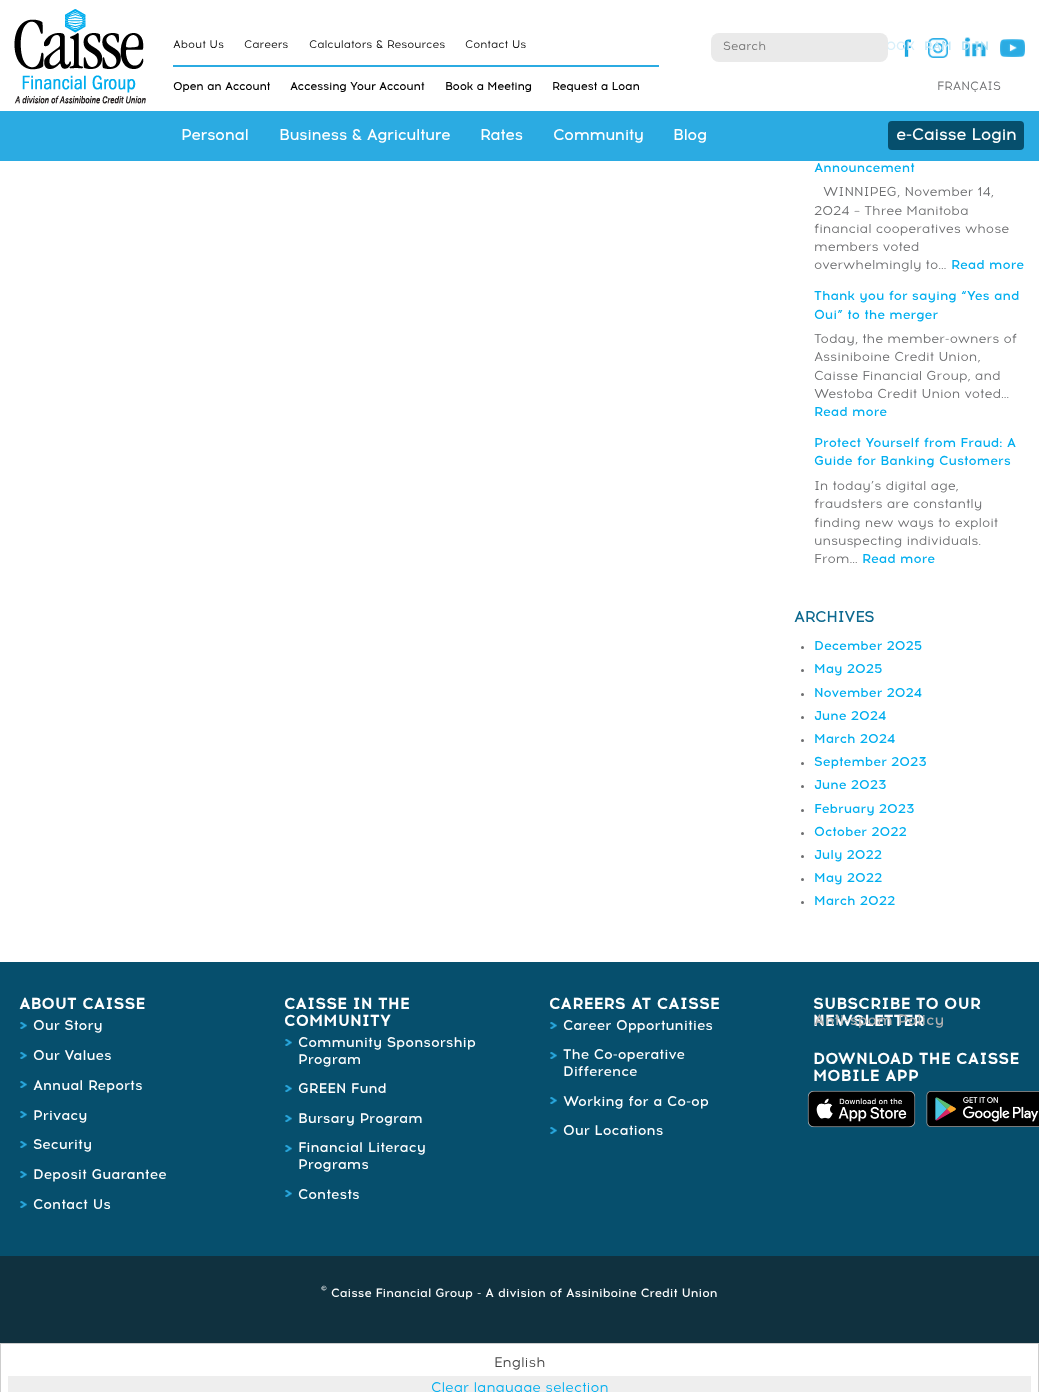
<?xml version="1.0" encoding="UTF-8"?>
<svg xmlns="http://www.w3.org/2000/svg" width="1039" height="1392">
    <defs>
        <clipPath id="clip1"><rect x="888" y="30" width="37" height="35"/></clipPath>
    </defs>
    <rect width="100%" height="100%" fill="#FFFFFF"/>
    <image x="14" y="9" width="132" height="95" href="img_01.png"/>
    <text x="173" y="48" font-family="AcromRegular" font-size="11" fill="#000000">About Us</text>
    <text x="244" y="48" font-family="AcromRegular" font-size="11" fill="#000000">Careers</text>
    <text x="309" y="48" font-family="AcromRegular" font-size="11" fill="#000000">Calculators &amp; Resources</text>
    <text x="465" y="48" font-family="AcromRegular" font-size="11" fill="#000000">Contact Us</text>
    <rect x="711" y="33" width="177" height="29" rx="8" fill="#EAEAEA"/>
    <text x="723" y="50" font-family="AcromRegular" font-size="12" fill="#757575">Search</text>
    <image x="903" y="39" width="9" height="18" href="img_02.png"/>
    <g clip-path="url(#clip1)">
        <text x="886" y="50" font-family="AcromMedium" font-size="12" font-weight="500" fill="#D7EFFA">OOK</text>
    </g>
    <image x="928" y="38" width="20" height="20" href="img_03.png"/>
    <text x="924" y="50" font-family="AcromMedium" font-size="12" font-weight="500" fill="#C1E8F9">RAM</text>
    <image x="964" y="37" width="23" height="21" href="img_04.png"/>
    <text x="961" y="50" font-family="AcromMedium" font-size="12" font-weight="500" fill="#AEDFF4">D IN</text>
    <image x="1000" y="39" width="25" height="18" href="img_05.png"/>
    <rect x="173" y="65" width="486" height="2" fill="#2BABE2"/>
    <text x="173" y="90" font-family="AcromRegular" font-size="11" font-weight="700" fill="#000000">Open an Account</text>
    <text x="290" y="90" font-family="AcromRegular" font-size="11" font-weight="700" fill="#000000">Accessing Your Account</text>
    <text x="445" y="90" font-family="AcromRegular" font-size="11" font-weight="700" fill="#000000">Book a Meeting</text>
    <text x="552" y="90" font-family="AcromRegular" font-size="11" font-weight="700" fill="#000000">Request a Loan</text>
    <text x="937" y="90" font-family="AcromRegular" font-size="12" fill="#6D6E70">FRANÇAIS</text>
    <rect x="0" y="111" width="1039" height="50" fill="#2BABE2"/>
    <text x="181" y="140" font-family="AcromRegular" font-size="15" font-weight="700" fill="#FFFFFF">Personal</text>
    <text x="279" y="140" font-family="AcromRegular" font-size="15" font-weight="700" fill="#FFFFFF">Business &amp; Agriculture</text>
    <text x="480" y="140" font-family="AcromRegular" font-size="15" font-weight="700" fill="#FFFFFF">Rates</text>
    <text x="553" y="140" font-family="AcromRegular" font-size="15" font-weight="700" fill="#FFFFFF">Community</text>
    <text x="673" y="140" font-family="AcromRegular" font-size="15" font-weight="700" fill="#FFFFFF">Blog</text>
    <rect x="888" y="121" width="136" height="29" rx="4" fill="#064F6D"/>
    <text x="896" y="140" font-family="AcromRegular" font-size="16" font-weight="700" fill="#FFFFFF">e-Caisse Login</text>
    <text x="814" y="172" font-family="AcromMedium" font-size="13" font-weight="500" fill="#00AEEF">Announcement</text>
    <text x="823" y="196" font-family="AcromRegular" font-size="13" fill="#6D6E70">WINNIPEG, November 14,</text>
    <text font-family="AcromRegular" font-size="13" fill="#6D6E70">
        <tspan x="814" y="215">2024 – Three Manitoba</tspan>
        <tspan x="814" y="233">financial cooperatives whose</tspan>
        <tspan x="814" y="251">members voted</tspan>
        <tspan x="814" y="269">overwhelmingly to…</tspan>
    </text>
    <text x="951" y="269" font-family="AcromMedium" font-size="13" font-weight="500" fill="#00AEEF">Read more</text>
    <text font-family="AcromMedium" font-size="13" font-weight="500" fill="#00AEEF">
        <tspan x="814" y="300">Thank you for saying “Yes and</tspan>
        <tspan x="814" y="319">Oui” to the merger</tspan>
    </text>
    <text font-family="AcromRegular" font-size="13" fill="#6D6E70">
        <tspan x="814" y="343">Today, the member-owners of</tspan>
        <tspan x="814" y="361">Assiniboine Credit Union,</tspan>
        <tspan x="814" y="380">Caisse Financial Group, and</tspan>
        <tspan x="814" y="398">Westoba Credit Union voted…</tspan>
    </text>
    <text x="814" y="416" font-family="AcromMedium" font-size="13" font-weight="500" fill="#00AEEF">Read more</text>
    <text font-family="AcromMedium" font-size="13" font-weight="500" fill="#00AEEF">
        <tspan x="814" y="447">Protect Yourself from Fraud: A</tspan>
        <tspan x="814" y="465">Guide for Banking Customers</tspan>
    </text>
    <text font-family="AcromRegular" font-size="13" fill="#6D6E70">
        <tspan x="814" y="490">In today’s digital age,</tspan>
        <tspan x="814" y="508">fraudsters are constantly</tspan>
        <tspan x="814" y="527">finding new ways to exploit</tspan>
        <tspan x="814" y="545">unsuspecting individuals.</tspan>
        <tspan x="814" y="563">From…</tspan>
    </text>
    <text x="862" y="563" font-family="AcromMedium" font-size="13" font-weight="500" fill="#00AEEF">Read more</text>
    <text x="794" y="622" font-family="AcromRegular" font-size="15" font-weight="700" fill="#0D698F">ARCHIVES</text>
    <circle cx="802.5" cy="647.5" r="1.5" fill="#6D6E70"/>
    <text x="814" y="650" font-family="AcromMedium" font-size="13" font-weight="500" fill="#00AEEF">December 2025</text>
    <circle cx="802.5" cy="670.5" r="1.5" fill="#6D6E70"/>
    <text x="814" y="673" font-family="AcromMedium" font-size="13" font-weight="500" fill="#00AEEF">May 2025</text>
    <circle cx="802.5" cy="694.5" r="1.5" fill="#6D6E70"/>
    <text x="814" y="697" font-family="AcromMedium" font-size="13" font-weight="500" fill="#00AEEF">November 2024</text>
    <circle cx="802.5" cy="717.5" r="1.5" fill="#6D6E70"/>
    <text x="814" y="720" font-family="AcromMedium" font-size="13" font-weight="500" fill="#00AEEF">June 2024</text>
    <circle cx="802.5" cy="740.5" r="1.5" fill="#6D6E70"/>
    <text x="814" y="743" font-family="AcromMedium" font-size="13" font-weight="500" fill="#00AEEF">March 2024</text>
    <circle cx="802.5" cy="763.5" r="1.5" fill="#6D6E70"/>
    <text x="814" y="766" font-family="AcromMedium" font-size="13" font-weight="500" fill="#00AEEF">September 2023</text>
    <circle cx="802.5" cy="786.5" r="1.5" fill="#6D6E70"/>
    <text x="814" y="789" font-family="AcromMedium" font-size="13" font-weight="500" fill="#00AEEF">June 2023</text>
    <circle cx="802.5" cy="810.5" r="1.5" fill="#6D6E70"/>
    <text x="814" y="813" font-family="AcromMedium" font-size="13" font-weight="500" fill="#00AEEF">February 2023</text>
    <circle cx="802.5" cy="833.5" r="1.5" fill="#6D6E70"/>
    <text x="814" y="836" font-family="AcromMedium" font-size="13" font-weight="500" fill="#00AEEF">October 2022</text>
    <circle cx="802.5" cy="856.5" r="1.5" fill="#6D6E70"/>
    <text x="814" y="859" font-family="AcromMedium" font-size="13" font-weight="500" fill="#00AEEF">July 2022</text>
    <circle cx="802.5" cy="879.5" r="1.5" fill="#6D6E70"/>
    <text x="814" y="882" font-family="AcromMedium" font-size="13" font-weight="500" fill="#00AEEF">May 2022</text>
    <circle cx="802.5" cy="902.5" r="1.5" fill="#6D6E70"/>
    <text x="814" y="905" font-family="AcromMedium" font-size="13" font-weight="500" fill="#00AEEF">March 2022</text>
    <rect x="0" y="962" width="1039" height="294" fill="#064F6D"/>
    <text x="19" y="1009" font-family="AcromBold" font-size="16" font-weight="700" fill="#FFFFFF">ABOUT CAISSE</text>
    <image x="20" y="1022" width="7" height="7" href="img_06.png"/>
    <text x="33" y="1030" font-family="AcromMedium" font-size="14" font-weight="500" fill="#FFFFFF">Our Story</text>
    <image x="20" y="1052" width="7" height="7" href="img_06.png"/>
    <text x="33" y="1060" font-family="AcromMedium" font-size="14" font-weight="500" fill="#FFFFFF">Our Values</text>
    <image x="20" y="1081" width="7" height="7" href="img_06.png"/>
    <text x="33" y="1090" font-family="AcromMedium" font-size="14" font-weight="500" fill="#FFFFFF">Annual Reports</text>
    <image x="20" y="1111" width="7" height="7" href="img_06.png"/>
    <text x="33" y="1120" font-family="AcromMedium" font-size="14" font-weight="500" fill="#FFFFFF">Privacy</text>
    <image x="20" y="1141" width="7" height="7" href="img_06.png"/>
    <text x="33" y="1149" font-family="AcromMedium" font-size="14" font-weight="500" fill="#FFFFFF">Security</text>
    <image x="20" y="1171" width="7" height="7" href="img_06.png"/>
    <text x="33" y="1179" font-family="AcromMedium" font-size="14" font-weight="500" fill="#FFFFFF">Deposit Guarantee</text>
    <image x="20" y="1201" width="7" height="7" href="img_06.png"/>
    <text x="33" y="1209" font-family="AcromMedium" font-size="14" font-weight="500" fill="#FFFFFF">Contact Us</text>
    <text font-family="AcromBold" font-size="16" font-weight="700" fill="#FFFFFF">
        <tspan x="284" y="1009">CAISSE IN THE</tspan>
        <tspan x="284" y="1026">COMMUNITY</tspan>
    </text>
    <image x="285" y="1039" width="7" height="7" href="img_06.png"/>
    <text font-family="AcromMedium" font-size="14" font-weight="500" fill="#FFFFFF">
        <tspan x="298" y="1047">Community Sponsorship</tspan>
        <tspan x="298" y="1064">Program</tspan>
    </text>
    <image x="285" y="1085" width="7" height="7" href="img_06.png"/>
    <text x="298" y="1093" font-family="AcromMedium" font-size="14" font-weight="500" fill="#FFFFFF">GREEN Fund</text>
    <image x="285" y="1115" width="7" height="7" href="img_06.png"/>
    <text x="298" y="1123" font-family="AcromMedium" font-size="14" font-weight="500" fill="#FFFFFF">Bursary Program</text>
    <image x="285" y="1145" width="7" height="7" href="img_06.png"/>
    <text font-family="AcromMedium" font-size="14" font-weight="500" fill="#FFFFFF">
        <tspan x="298" y="1152">Financial Literacy</tspan>
        <tspan x="298" y="1169">Programs</tspan>
    </text>
    <image x="285" y="1190" width="7" height="7" href="img_06.png"/>
    <text x="298" y="1199" font-family="AcromMedium" font-size="14" font-weight="500" fill="#FFFFFF">Contests</text>
    <text x="549" y="1009" font-family="AcromBold" font-size="16" font-weight="700" fill="#FFFFFF">CAREERS AT CAISSE</text>
    <image x="550" y="1022" width="7" height="7" href="img_06.png"/>
    <text x="563" y="1030" font-family="AcromMedium" font-size="14" font-weight="500" fill="#FFFFFF">Career Opportunities</text>
    <image x="550" y="1052" width="7" height="7" href="img_06.png"/>
    <text font-family="AcromMedium" font-size="14" font-weight="500" fill="#FFFFFF">
        <tspan x="563" y="1059">The Co-operative</tspan>
        <tspan x="563" y="1076">Difference</tspan>
    </text>
    <image x="550" y="1097" width="7" height="7" href="img_06.png"/>
    <text x="563" y="1106" font-family="AcromMedium" font-size="14" font-weight="500" fill="#FFFFFF">Working for a Co-op</text>
    <image x="550" y="1127" width="7" height="7" href="img_06.png"/>
    <text x="563" y="1135" font-family="AcromMedium" font-size="14" font-weight="500" fill="#FFFFFF">Our Locations</text>
    <text font-family="AcromBold" font-size="16" font-weight="700" fill="#FFFFFF">
        <tspan x="813" y="1009">SUBSCRIBE TO OUR</tspan>
        <tspan x="813" y="1026">NEWSLETTER</tspan>
    </text>
    <text x="814" y="1025" font-family="AcromMedium" font-size="15" font-weight="500" fill="#B1B1B1">Anti-spam Policy</text>
    <text font-family="AcromBold" font-size="16" font-weight="700" fill="#FFFFFF">
        <tspan x="813" y="1064">DOWNLOAD THE CAISSE</tspan>
        <tspan x="813" y="1081">MOBILE APP</tspan>
    </text>
    <image x="807" y="1090" width="109" height="38" href="img_07.png"/>
    <image x="926" y="1091" width="113" height="36" href="img_08.png"/>
    <rect x="0" y="1256" width="1039" height="87" fill="#10313F"/>
    <text x="321" y="1292" font-family="AcromMedium" font-size="9" font-weight="500" fill="#FFFFFF">©</text>
    <text x="331" y="1297" font-family="AcromMedium" font-size="12" font-weight="500" fill="#FFFFFF">Caisse Financial Group - A division of Assiniboine Credit Union</text>
    <rect x="0.5" y="1343.5" width="1038" height="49" fill="none" stroke="#CDCDCD"/>
    <text x="494" y="1367" font-family="AcromRegular" font-size="14" fill="#444444">English</text>
    <rect x="8" y="1376" width="1023" height="16" fill="#EEEEEE"/>
    <text x="431" y="1392" font-family="AcromRegular" font-size="14" fill="#00AEEF">Clear language selection</text>
</svg>
